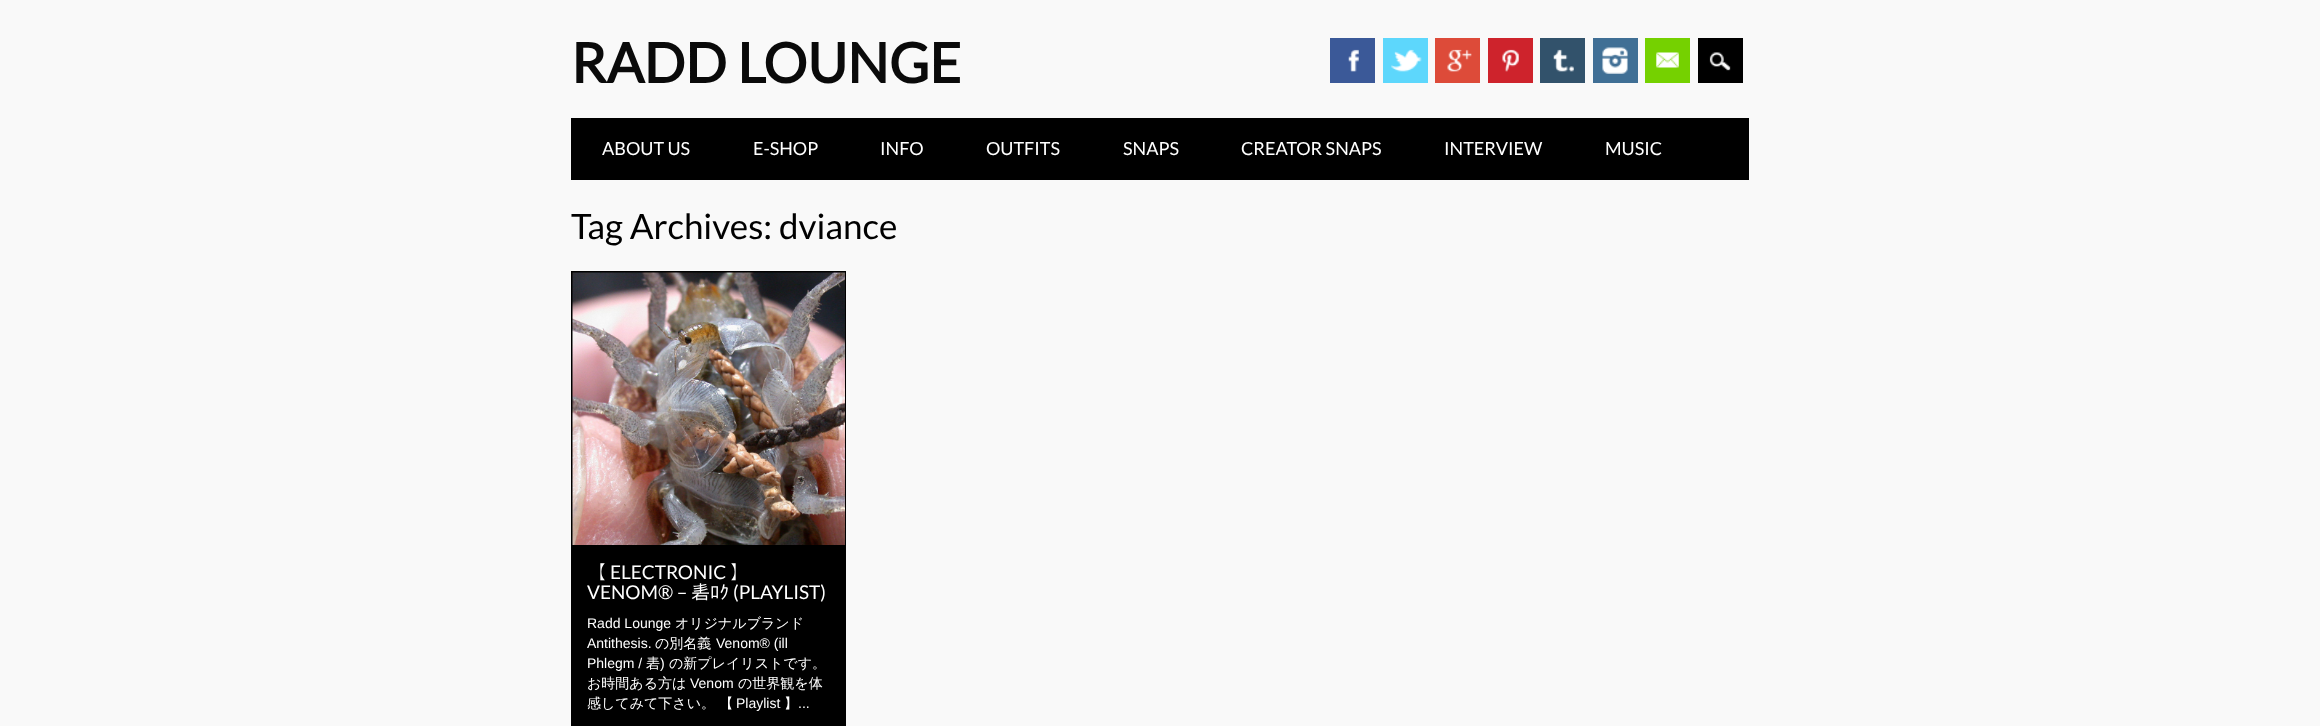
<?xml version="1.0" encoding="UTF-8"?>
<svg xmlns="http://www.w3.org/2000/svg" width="2320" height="726">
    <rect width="100%" height="100%" fill="#F9F9F9"/>
    <text x="571" y="83" font-family="Lato" font-size="55" font-weight="700" fill="#0A0A0A">RADD LOUNGE</text>
    <rect x="1330" y="38" width="45" height="45" fill="#3B5998"/>
    <image x="1348" y="49" width="11" height="23" href="img_01.png"/>
    <rect x="1383" y="38" width="45" height="45" fill="#5DD7FC"/>
    <image x="1391" y="49" width="31" height="23" href="img_02.png"/>
    <rect x="1435" y="38" width="45" height="45" fill="#DD4B39"/>
    <image x="1447" y="49" width="25" height="23" href="img_03.png"/>
    <rect x="1488" y="38" width="45" height="45" fill="#CE232C"/>
    <image x="1502" y="49" width="17" height="23" href="img_04.png"/>
    <rect x="1540" y="38" width="45" height="45" fill="#32526B"/>
    <image x="1553" y="49" width="21" height="23" href="img_05.png"/>
    <rect x="1593" y="38" width="45" height="45" fill="#406F95"/>
    <image x="1602" y="47" width="26" height="27" href="img_06.png"/>
    <rect x="1645" y="38" width="45" height="45" fill="#75D100"/>
    <image x="1656" y="52" width="23" height="16" href="img_07.png"/>
    <rect x="1698" y="38" width="45" height="45" fill="#000000"/>
    <image x="1709" y="52" width="22" height="19" href="img_08.png"/>
    <rect x="571" y="118" width="1178" height="62" fill="#000000"/>
    <text x="602" y="155" font-family="Lato" font-size="18" fill="#FFFFFF">ABOUT US</text>
    <text x="753" y="155" font-family="Lato" font-size="18" fill="#FFFFFF">E-SHOP</text>
    <text x="880" y="155" font-family="Lato" font-size="18" fill="#FFFFFF">INFO</text>
    <text x="986" y="155" font-family="Lato" font-size="18" fill="#FFFFFF">OUTFITS</text>
    <text x="1123" y="155" font-family="Lato" font-size="18" fill="#FFFFFF">SNAPS</text>
    <text x="1241" y="155" font-family="Lato" font-size="18" fill="#FFFFFF">CREATOR SNAPS</text>
    <text x="1444" y="155" font-family="Lato" font-size="18" fill="#FFFFFF">INTERVIEW</text>
    <text x="1605" y="155" font-family="Lato" font-size="18" fill="#FFFFFF">MUSIC</text>
    <text x="571" y="239" font-family="Lato" font-size="35" fill="#000000">Tag Archives: dviance</text>
    <rect x="571" y="271" width="275" height="455" fill="#000000"/>
    <image x="572" y="272" width="273" height="273" href="img_09.png"/>
    <text x="587" y="579" font-family="IPAGothic" font-size="19" fill="#FFFFFF">【</text>
    <text x="610" y="579" font-family="Lato" font-size="19" fill="#FFFFFF">ELECTRONIC</text>
    <text x="730" y="579" font-family="IPAGothic" font-size="19" fill="#FFFFFF">】</text>
    <text x="587" y="599" font-family="Lato" font-size="19" fill="#FFFFFF">VENOM® –</text>
    <text x="691" y="599" font-family="IPAGothic" font-size="19" fill="#FFFFFF">砉ﾛｸ</text>
    <text x="733" y="599" font-family="Lato" font-size="19" fill="#FFFFFF">(PLAYLIST)</text>
    <text x="587" y="628" font-family="Liberation Sans" font-size="14" fill="#FFFFFF">Radd Lounge</text>
    <text x="675" y="628" font-family="WenQuanYi Zen Hei" font-size="14" font-weight="500" fill="#FFFFFF">オリジナルブランド</text>
    <text x="587" y="648" font-family="Liberation Sans" font-size="14" fill="#FFFFFF">Antithesis.</text>
    <text x="655" y="648" font-family="WenQuanYi Zen Hei" font-size="14" font-weight="500" fill="#FFFFFF">の別名義</text>
    <text x="716" y="648" font-family="Liberation Sans" font-size="14" fill="#FFFFFF">Venom® (ill</text>
    <text x="587" y="668" font-family="Liberation Sans" font-size="14" fill="#FFFFFF">Phlegm /</text>
    <text x="646" y="668" font-family="WenQuanYi Zen Hei" font-size="14" font-weight="500" fill="#FFFFFF">砉</text>
    <text x="660" y="668" font-family="Liberation Sans" font-size="14" fill="#FFFFFF">)</text>
    <text x="669" y="668" font-family="WenQuanYi Zen Hei" font-size="14" font-weight="500" fill="#FFFFFF">の新プレイリストです。</text>
    <text x="587" y="688" font-family="WenQuanYi Zen Hei" font-size="14" font-weight="500" fill="#FFFFFF">お時間ある方は</text>
    <text x="690" y="688" font-family="Liberation Sans" font-size="14" fill="#FFFFFF">Venom</text>
    <text x="738" y="688" font-family="WenQuanYi Zen Hei" font-size="14" font-weight="500" fill="#FFFFFF">の世界観を体</text>
    <text x="587" y="708" font-family="WenQuanYi Zen Hei" font-size="14" font-weight="500" fill="#FFFFFF">感してみて下さい。 【</text>
    <text x="736" y="708" font-family="Liberation Sans" font-size="14" fill="#FFFFFF">Playlist</text>
    <text x="784" y="708" font-family="WenQuanYi Zen Hei" font-size="14" font-weight="500" fill="#FFFFFF">】</text>
    <text x="798" y="708" font-family="Liberation Sans" font-size="14" fill="#FFFFFF">...</text>
</svg>
